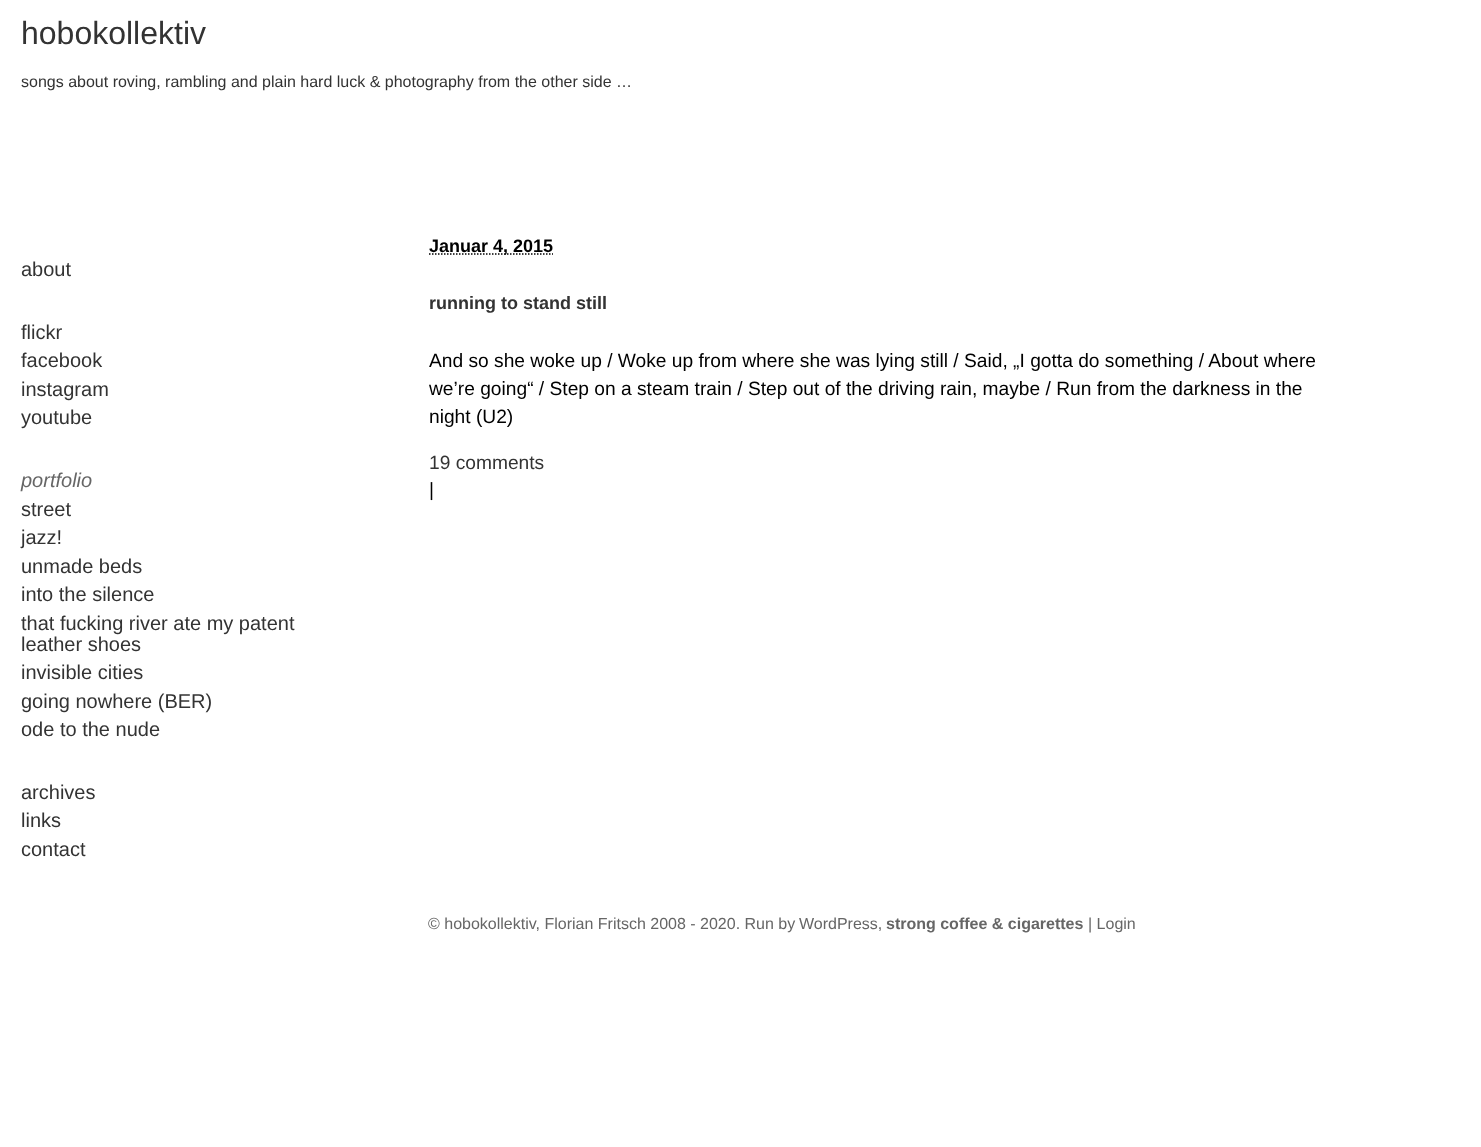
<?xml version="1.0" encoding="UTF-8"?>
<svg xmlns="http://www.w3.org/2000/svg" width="1481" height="1147">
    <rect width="100%" height="100%" fill="#FFFFFF"/>
    <text x="21" y="44" font-family="Liberation Sans" font-size="32" fill="#333333">hobokollektiv</text>
    <text x="21" y="87" font-family="Liberation Sans" font-size="16" fill="#333333">songs about roving, rambling and plain hard luck &amp; photography from the other side …</text>
    <text x="21" y="276" font-family="Liberation Sans" font-size="20" fill="#333333">about</text>
    <text font-family="Liberation Sans" font-size="20" fill="#333333">
        <tspan x="21" y="339">flickr</tspan>
        <tspan x="21" y="367">facebook</tspan>
        <tspan x="21" y="396">instagram</tspan>
        <tspan x="21" y="424">youtube</tspan>
    </text>
    <text x="21" y="487" font-family="Liberation Sans" font-size="20" font-style="italic" fill="#666666">portfolio</text>
    <text font-family="Liberation Sans" font-size="20" fill="#333333">
        <tspan x="21" y="516">street</tspan>
        <tspan x="21" y="544">jazz!</tspan>
        <tspan x="21" y="573">unmade beds</tspan>
        <tspan x="21" y="601">into the silence</tspan>
        <tspan x="21" y="630">that fucking river ate my patent</tspan>
        <tspan x="21" y="651">leather shoes</tspan>
        <tspan x="21" y="679">invisible cities</tspan>
        <tspan x="21" y="708">going nowhere (BER)</tspan>
        <tspan x="21" y="736">ode to the nude</tspan>
    </text>
    <text font-family="Liberation Sans" font-size="20" fill="#333333">
        <tspan x="21" y="799">archives</tspan>
        <tspan x="21" y="827">links</tspan>
        <tspan x="21" y="856">contact</tspan>
    </text>
    <path d="M 429 254 H 553" fill="none" stroke="#000000" stroke-width="1.5" stroke-dasharray="1.5 1.5"/>
    <text x="429" y="252" font-family="Liberation Sans" font-size="18" font-weight="700" fill="#000000">Januar 4, 2015</text>
    <text x="429" y="309" font-family="Liberation Sans" font-size="18" font-weight="700" fill="#333333">running to stand still</text>
    <text font-family="Liberation Sans" font-size="19.2" fill="#000000">
        <tspan x="429" y="367">And so she woke up / Woke up from where she was lying still / Said, „I gotta do something / About where</tspan>
        <tspan x="429" y="395">we’re going“ / Step on a steam train / Step out of the driving rain, maybe / Run from the darkness in the</tspan>
        <tspan x="429" y="423">night (U2)</tspan>
    </text>
    <text x="429" y="469" font-family="Liberation Sans" font-size="19.2" fill="#333333">19 comments</text>
    <text x="429" y="496" font-family="Liberation Sans" font-size="19.2" fill="#000000">|</text>
    <text x="428" y="929" font-family="Liberation Sans" font-size="16" fill="#666666">© hobokollektiv, Florian Fritsch 2008 - 2020. Run by</text>
    <text x="799" y="929" font-family="Liberation Sans" font-size="16" fill="#666666">WordPress,</text>
    <text x="886" y="929" font-family="Liberation Sans" font-size="16" font-weight="700" fill="#666666">strong coffee &amp; cigarettes</text>
    <text x="1088" y="929" font-family="Liberation Sans" font-size="16" fill="#666666">| Login</text>
</svg>
